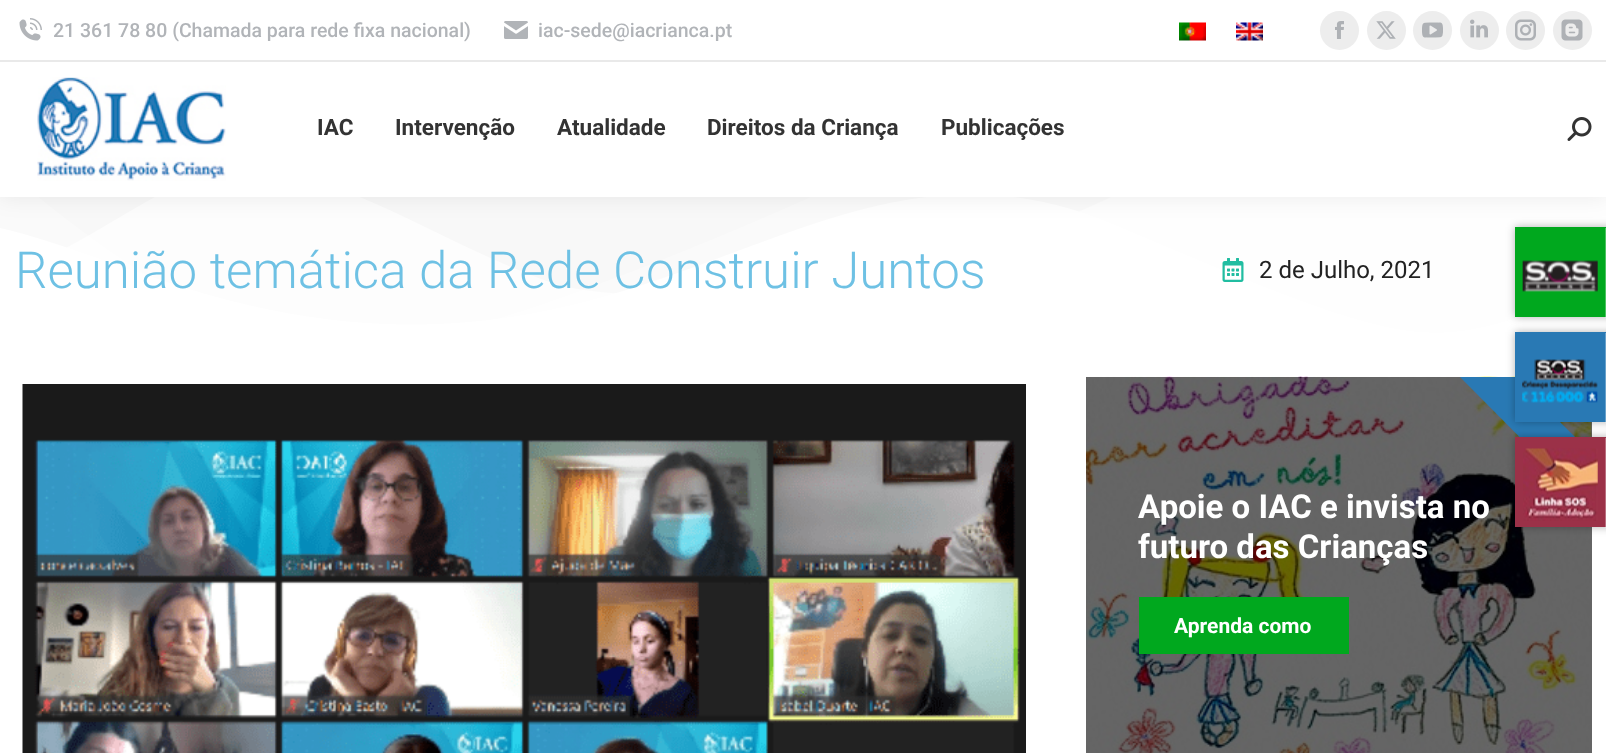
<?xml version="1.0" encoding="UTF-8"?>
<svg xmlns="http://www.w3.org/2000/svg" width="1606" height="753">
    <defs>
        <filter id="blur1" x="-50%" y="-200%" width="200%" height="500%"><feGaussianBlur stdDeviation="4"/></filter>
        <filter id="blur2" x="-50%" y="-200%" width="200%" height="500%"><feGaussianBlur stdDeviation="11"/></filter>
        <clipPath id="clip1"><rect x="1086" y="377" width="506" height="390"/></clipPath>
    </defs>
    <rect width="100%" height="100%" fill="#FFFFFF"/>
    <rect x="1591" y="422" width="1" height="331" fill="#666666"/>
    <rect x="0" y="197" width="1606" height="136" fill="#F8F8F8"/>
    <image x="0" y="197" width="1606" height="165" href="img_13.png"/>
    <rect x="1515" y="227" width="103" height="90" fill="#000000" fill-opacity="0.3" filter="url(#blur1)"/>
    <rect x="1515" y="227" width="91" height="90" fill="#00A81E"/>
    <rect x="1605" y="228" width="1" height="90" fill="#FFFFFF" fill-opacity="0.3"/>
    <rect x="-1" y="-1" width="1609" height="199" fill="#000000" fill-opacity="0.07" filter="url(#blur2)"/>
    <rect x="0" y="0" width="1606" height="197" fill="#FFFFFF"/>
    <image x="19" y="18" width="23" height="23" href="img_01.png"/>
    <text x="53" y="37" font-family="Roboto" font-size="19.5" font-weight="500" fill="#B1B4B8">21 361 78 80 (Chamada para rede fixa nacional)</text>
    <image x="504" y="21" width="24" height="18" href="img_02.png"/>
    <text x="538" y="37" font-family="Roboto" font-size="19.5" font-weight="500" fill="#B1B4B8">iac-sede@iacrianca.pt</text>
    <image x="1179" y="22" width="27" height="19" href="img_03.png"/>
    <image x="1236" y="22" width="27" height="19" href="img_04.png"/>
    <circle cx="1339.5" cy="30.5" r="19.5" fill="#EDEDED"/>
    <image x="1335" y="21" width="9" height="18" href="img_05.png"/>
    <circle cx="1386.5" cy="30.5" r="19.5" fill="#EDEDED"/>
    <image x="1376" y="21" width="20" height="18" href="img_06.png"/>
    <circle cx="1432.5" cy="30.5" r="19.5" fill="#EDEDED"/>
    <image x="1422" y="22" width="21" height="16" href="img_07.png"/>
    <circle cx="1479.5" cy="30.5" r="19.5" fill="#EDEDED"/>
    <image x="1470" y="19" width="18" height="19" href="img_08.png"/>
    <circle cx="1525.5" cy="30.5" r="19.5" fill="#EDEDED"/>
    <image x="1515" y="19" width="21" height="22" href="img_09.png"/>
    <circle cx="1572.5" cy="30.5" r="19.5" fill="#EDEDED"/>
    <image x="1561" y="19" width="22" height="22" href="img_10.png"/>
    <rect x="0" y="60" width="1606" height="2" fill="#E9E9E9"/>
    <image x="37" y="77" width="189" height="104" href="img_11.png"/>
    <text x="317" y="135" font-family="Roboto" font-size="22.5" font-weight="700" fill="#333333">IAC</text>
    <text x="395" y="135" font-family="Roboto" font-size="22.5" font-weight="700" fill="#333333">Intervenção</text>
    <text x="557" y="135" font-family="Roboto" font-size="22.5" font-weight="700" fill="#333333">Atualidade</text>
    <text x="707" y="135" font-family="Roboto" font-size="22.5" font-weight="700" fill="#333333">Direitos da Criança</text>
    <text x="941" y="135" font-family="Roboto" font-size="22.5" font-weight="700" fill="#333333">Publicações</text>
    <image x="1567" y="117" width="25" height="24" href="img_12.png"/>
    <text x="15" y="288" font-family="Roboto" font-size="51" font-weight="300" fill="#6EC1E4">Reunião temática da Rede Construir Juntos</text>
    <image x="1222" y="258" width="22" height="24" href="img_14.png"/>
    <text x="1259" y="278" font-family="Roboto" font-size="24" fill="#222222">2 de Julho, 2021</text>
    <image x="22" y="384" width="1004" height="369" href="img_15.png"/>
    <image x="1086" y="376" width="506" height="377" href="img_16.png"/>
    <text x="1138" y="518" font-family="Roboto" font-size="33" font-weight="700" fill="#FFFFFF">Apoie o IAC e invista no</text>
    <g clip-path="url(#clip1)">
        <path d="M 1591 509 L 1459 376 H 1514 L 1591 453 Z" fill="#2979B4"/>
    </g>
    <text x="1138" y="558" font-family="Roboto" font-size="33" font-weight="700" fill="#FFFFFF">futuro das Crianças</text>
    <rect x="1139" y="597" width="210" height="57" fill="#00A81E"/>
    <text x="1174" y="633" font-family="Roboto" font-size="21" font-weight="700" fill="#FFFFFF">Aprenda como</text>
    <image x="1522" y="260" width="76" height="32" href="img_17.png"/>
    <rect x="1515" y="332" width="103" height="90" fill="#000000" fill-opacity="0.3" filter="url(#blur1)"/>
    <rect x="1515" y="332" width="91" height="90" fill="#2979B4"/>
    <rect x="1605" y="333" width="1" height="90" fill="#FFFFFF" fill-opacity="0.3"/>
    <image x="1522" y="359" width="76" height="44" href="img_18.png"/>
    <rect x="1515" y="437" width="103" height="90" fill="#000000" fill-opacity="0.3" filter="url(#blur1)"/>
    <rect x="1515" y="437" width="91" height="90" fill="#9B3148"/>
    <rect x="1605" y="438" width="1" height="90" fill="#FFFFFF" fill-opacity="0.3"/>
    <image x="1523" y="448" width="75" height="73" href="img_19.png"/>
</svg>
